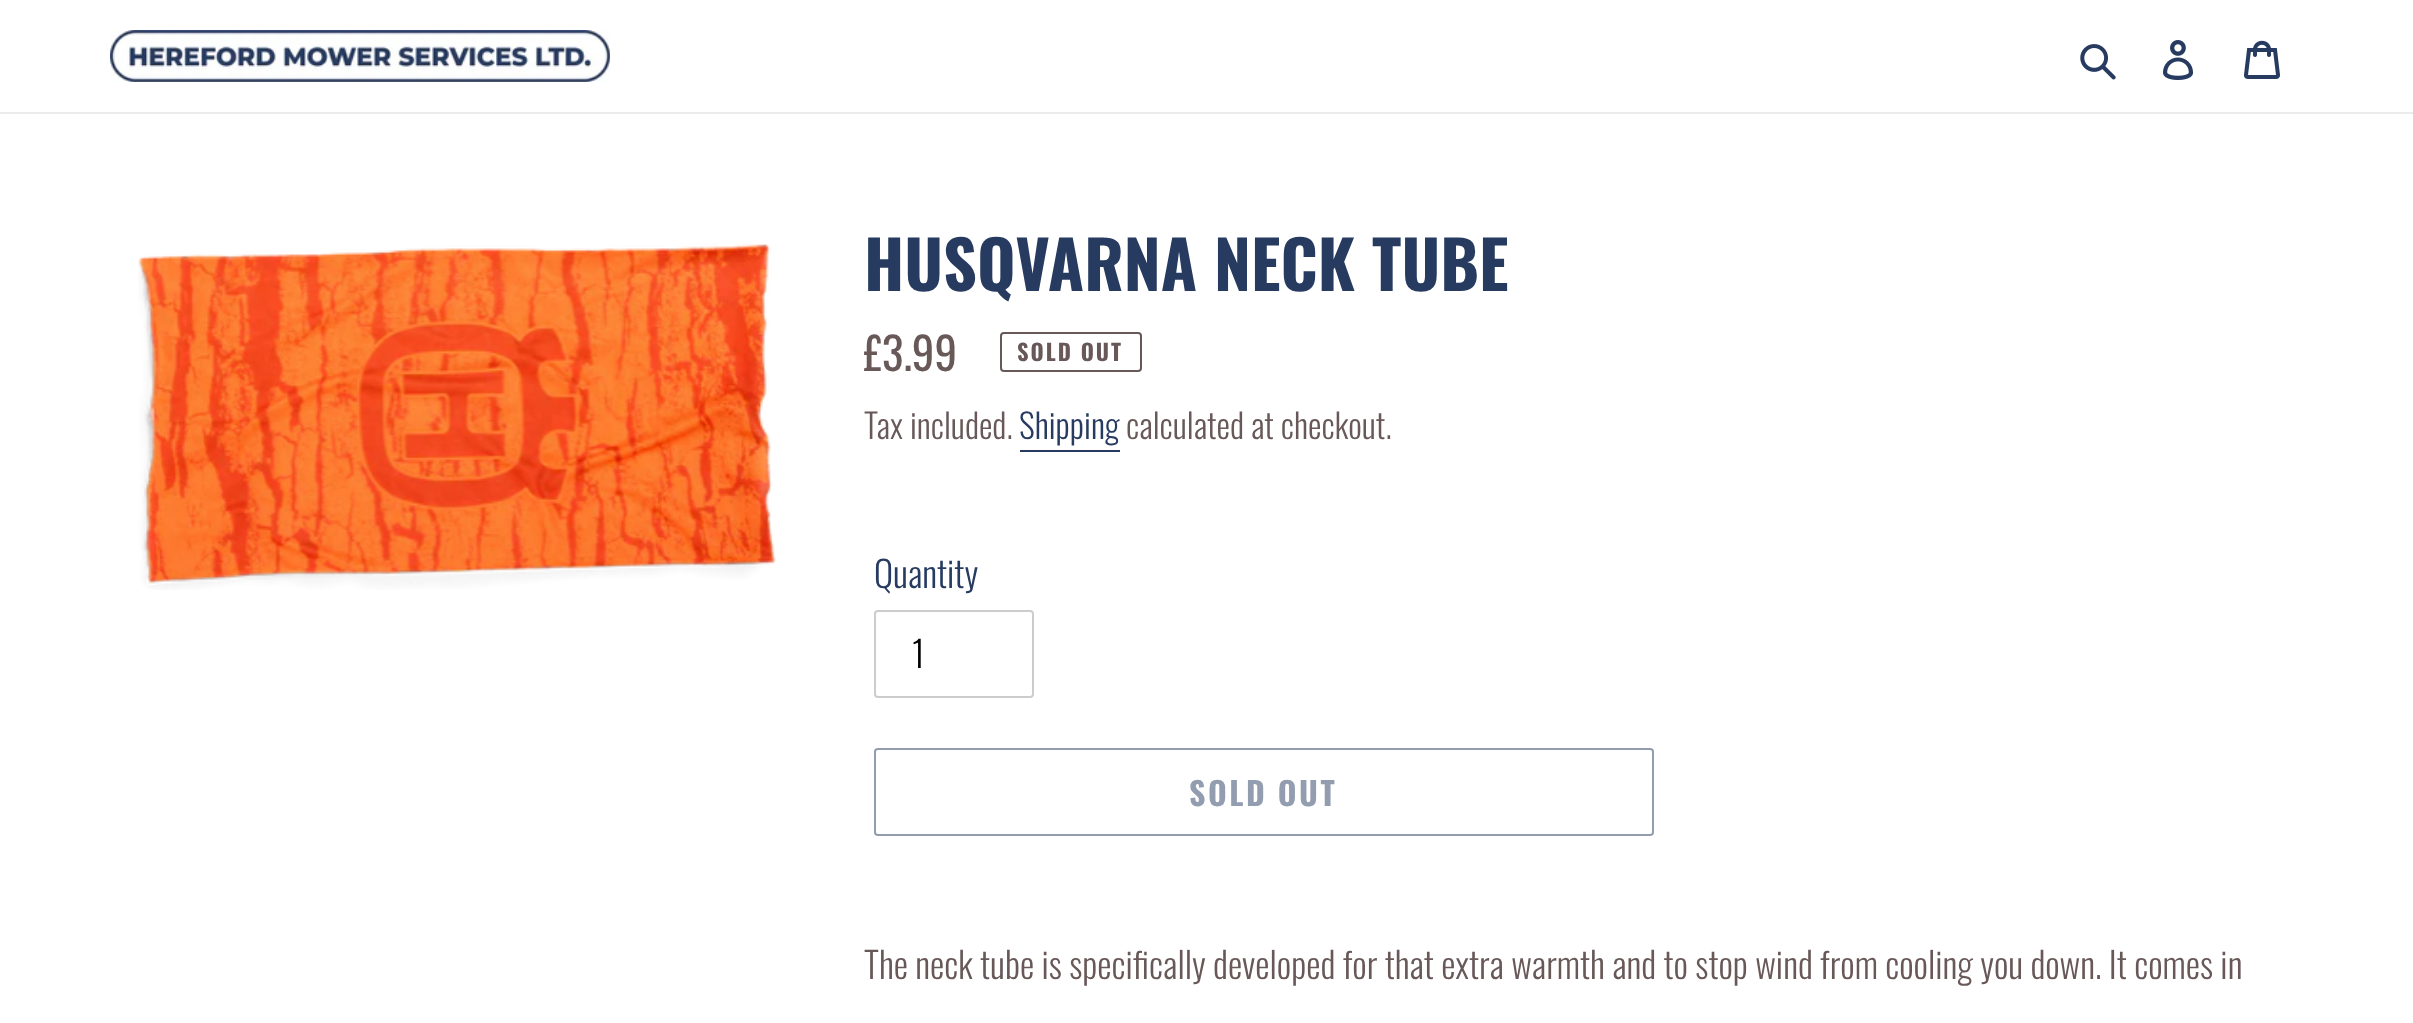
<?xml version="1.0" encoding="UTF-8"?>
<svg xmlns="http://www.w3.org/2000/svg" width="2413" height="1023">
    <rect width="100%" height="100%" fill="#FFFFFF"/>
    <rect x="0" y="112" width="2413" height="2" fill="#EBEBEB"/>
    <image x="110" y="30" width="500" height="52" href="img_01.png"/>
    <image x="2080" y="44" width="36" height="36" href="img_02.png"/>
    <image x="2163" y="40" width="31" height="40" href="img_03.png"/>
    <image x="2244" y="40" width="36" height="39" href="img_04.png"/>
    <image x="138" y="243" width="638" height="347" href="img_05.png"/>
    <text x="864" y="291" font-family="Oswald" font-size="66" font-weight="700" fill="#273B60">HUSQVARNA NECK TUBE</text>
    <text x="864" y="371" font-family="Oswald" font-size="45" fill="#685858">£3.99</text>
    <rect x="1001" y="333" width="140" height="38" rx="3" fill="none" stroke="#685858" stroke-width="2"/>
    <text x="1017" y="361" font-family="Oswald" font-size="22.5" font-weight="700" letter-spacing="2" fill="#685858">SOLD OUT</text>
    <text x="864" y="439" font-family="Oswald" font-size="34" font-weight="300" fill="#685858">Tax included.</text>
    <text x="1019" y="439" font-family="Oswald" font-size="34" font-weight="300" fill="#273B60">Shipping</text>
    <rect x="1020" y="450" width="100" height="2" fill="#273B60"/>
    <text x="1126" y="439" font-family="Oswald" font-size="34" font-weight="300" fill="#685858">calculated at checkout.</text>
    <text x="874" y="588" font-family="Oswald" font-size="36" font-weight="300" fill="#273B60">Quantity</text>
    <rect x="875" y="611" width="158" height="86" rx="3" fill="none" stroke="#CCCCCC" stroke-width="2"/>
    <text x="912" y="668" font-family="Oswald" font-size="36" font-weight="300" fill="#000000">1</text>
    <rect x="875" y="749" width="778" height="86" rx="3" fill="none" stroke="#939DB0" stroke-width="2"/>
    <text x="1189" y="806" font-family="Oswald" font-size="32" font-weight="700" letter-spacing="2.5" fill="#939DB0">SOLD OUT</text>
    <text x="864" y="979" font-family="Oswald" font-size="36" font-weight="300" fill="#685858">The neck tube is specifically developed for that extra warmth and to stop wind from cooling you down. It comes in</text>
</svg>
